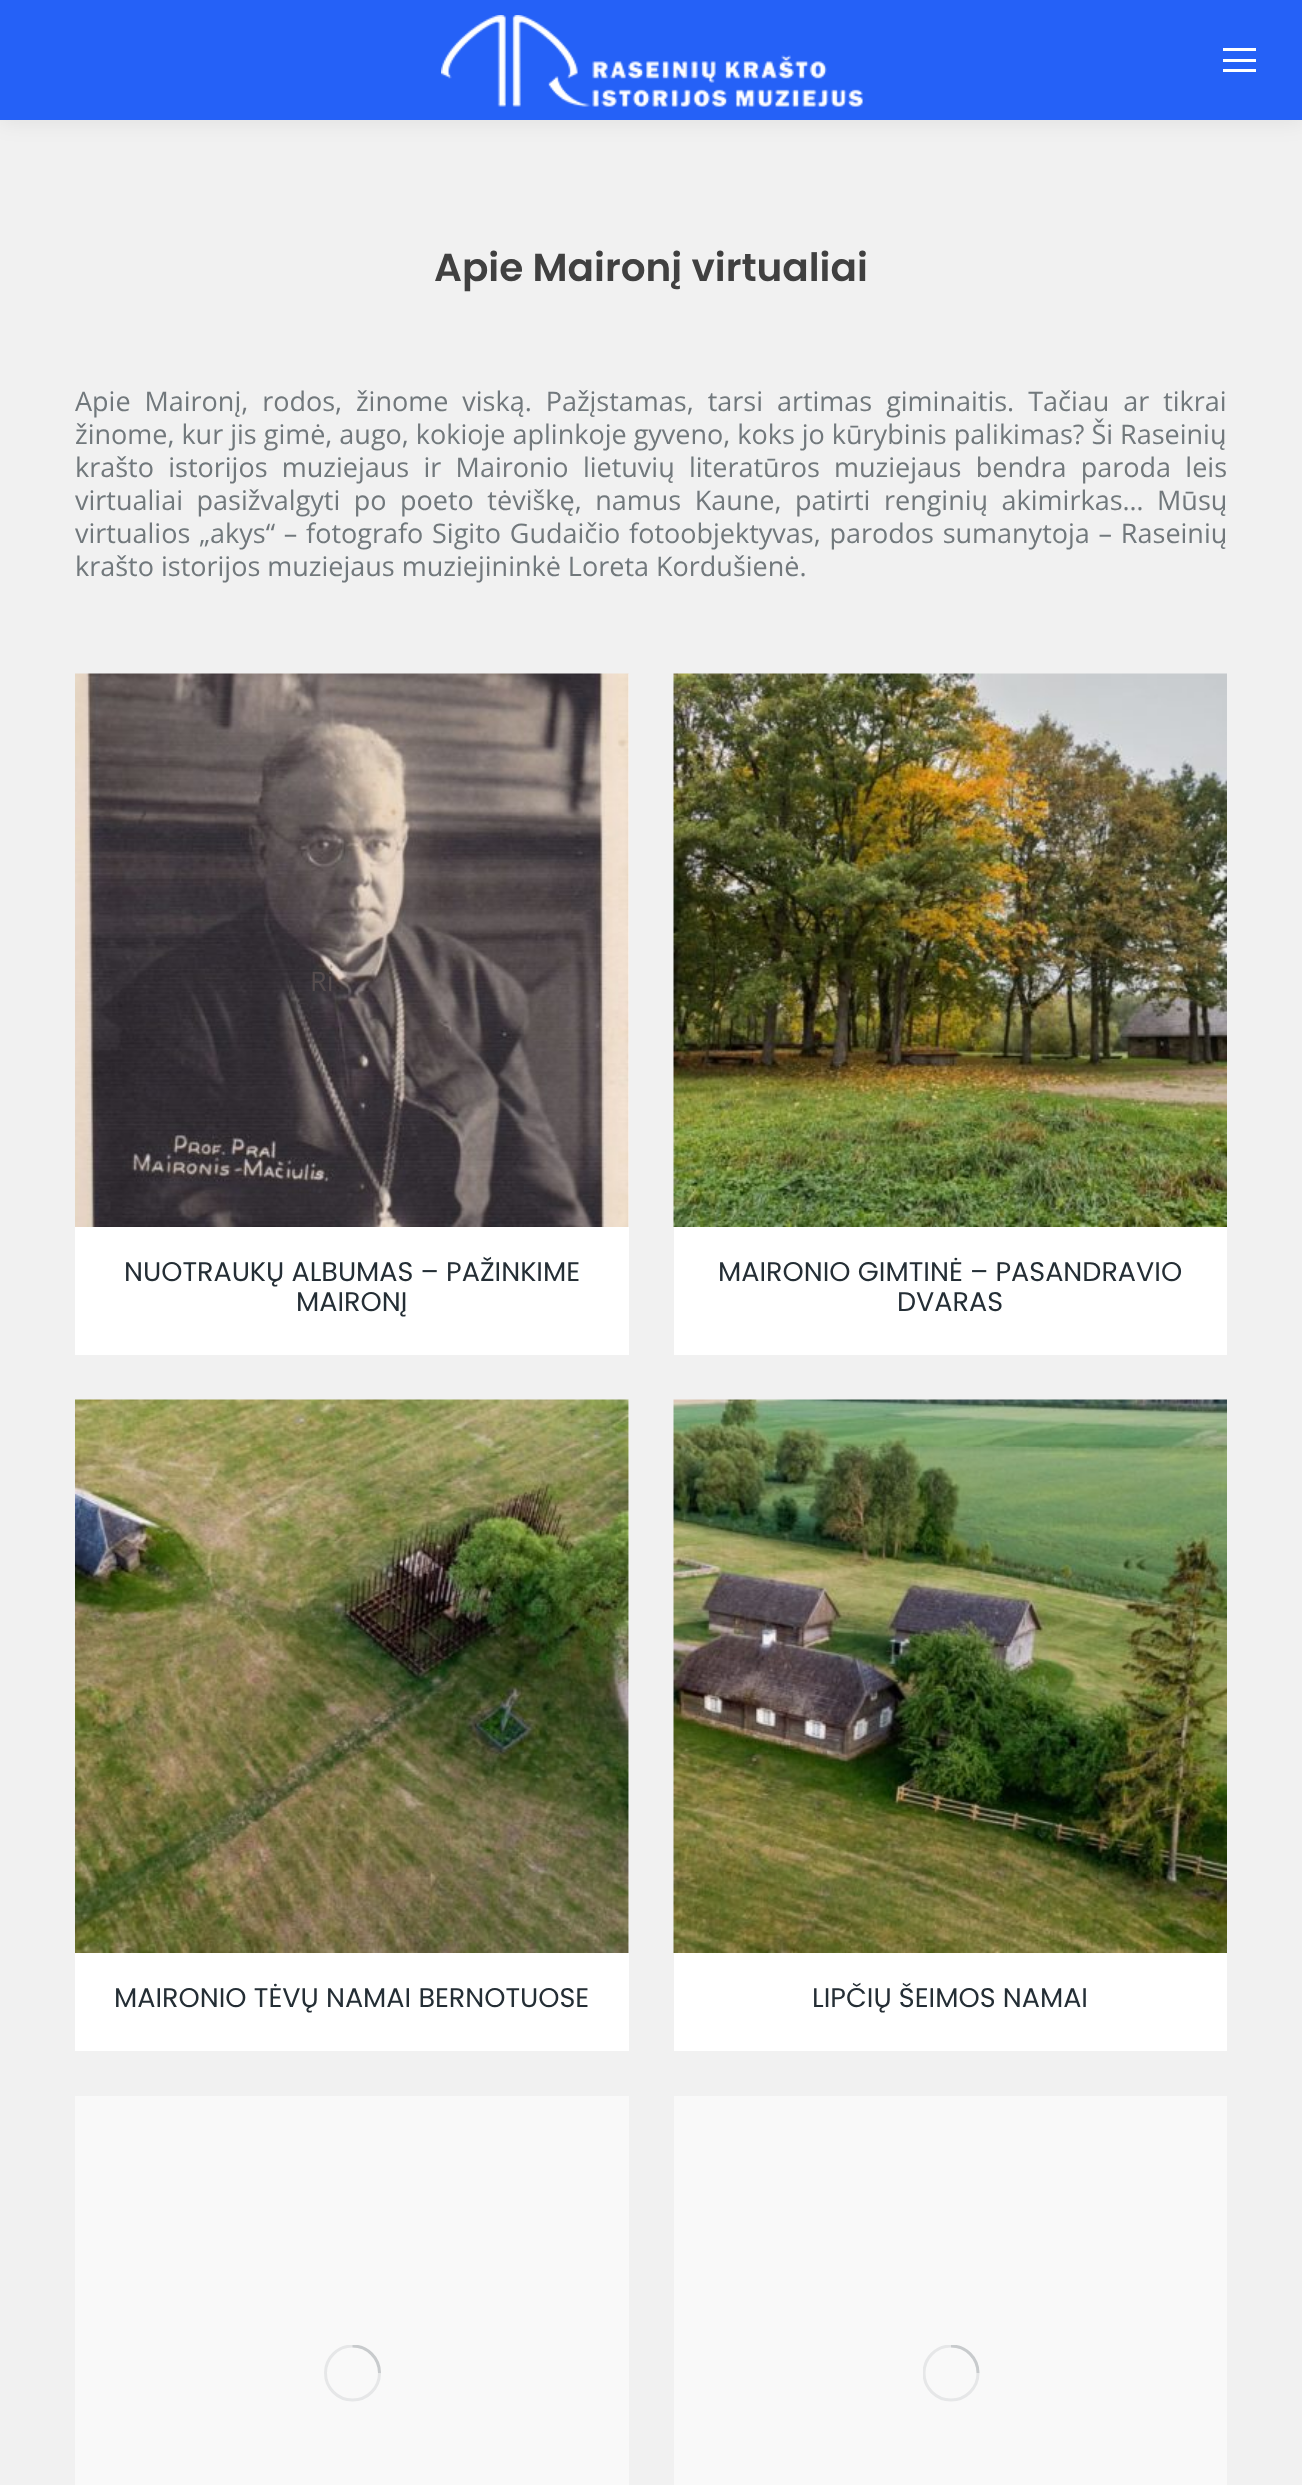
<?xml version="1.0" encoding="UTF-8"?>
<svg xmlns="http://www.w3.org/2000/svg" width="1302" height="2485">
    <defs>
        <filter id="blur1" x="-50%" y="-200%" width="200%" height="500%"><feGaussianBlur stdDeviation="11"/></filter>
        <clipPath id="clip1"><rect x="324" y="2345" width="57" height="57"/></clipPath>
        <clipPath id="clip2"><rect x="923" y="2345" width="57" height="57"/></clipPath>
    </defs>
    <rect width="100%" height="100%" fill="#F1F1F1"/>
    <rect x="-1" y="-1" width="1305" height="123" fill="#000000" fill-opacity="0.07" filter="url(#blur1)"/>
    <rect x="0" y="0" width="1302" height="120" fill="#2561F7"/>
    <image x="441" y="15" width="422" height="92" href="img_01.png"/>
    <rect x="1223" y="48" width="33" height="3" fill="#FFFFFF"/>
    <rect x="1223" y="59" width="33" height="3" fill="#FFFFFF"/>
    <rect x="1223" y="69" width="33" height="3" fill="#FFFFFF"/>
    <text x="434" y="281" font-family="Poppins" font-size="39" font-weight="600" fill="#404040">Apie Maironį virtualiai</text>
    <text font-family="Open Sans" font-size="27" fill="#71787C">
        <tspan x="75" y="411" word-spacing="6.9">Apie Maironį, rodos, žinome viską. Pažįstamas, tarsi artimas giminaitis. Tačiau ar tikrai</tspan>
        <tspan x="75" y="444">žinome, kur jis gimė, augo, kokioje aplinkoje gyveno, koks jo kūrybinis palikimas? Ši Raseinių</tspan>
        <tspan x="75" y="477" word-spacing="7.25">krašto istorijos muziejaus ir Maironio lietuvių literatūros muziejaus bendra paroda leis</tspan>
        <tspan x="75" y="510" word-spacing="6.5">virtualiai pasižvalgyti po poeto tėviškę, namus Kaune, patirti renginių akimirkas… Mūsų</tspan>
        <tspan x="75" y="543" word-spacing="1.75">virtualios „akys“ – fotografo Sigito Gudaičio fotoobjektyvas, parodos sumanytoja – Raseinių</tspan>
        <tspan x="75" y="576">krašto istorijos muziejaus muziejininkė Loreta Kordušienė.</tspan>
    </text>
    <rect x="75" y="674" width="554" height="681" fill="#FFFFFF"/>
    <image x="75" y="673" width="554" height="554" href="img_02.png"/>
    <text x="310" y="991" font-family="Open Sans" font-size="27" fill="#564D4E">Ri</text>
    <text x="124" y="1281" font-family="Poppins" font-size="27" fill="#242E35">NUOTRAUKŲ ALBUMAS – PAŽINKIME</text>
    <text x="296" y="1311" font-family="Poppins" font-size="27" fill="#242E35">MAIRONĮ</text>
    <rect x="674" y="1227" width="553" height="128" fill="#FFFFFF"/>
    <image x="673" y="673" width="554" height="554" href="img_03.png"/>
    <text x="718" y="1281" font-family="Poppins" font-size="27" fill="#242E35">MAIRONIO GIMTINĖ – PASANDRAVIO</text>
    <text x="897" y="1311" font-family="Poppins" font-size="27" fill="#242E35">DVARAS</text>
    <rect x="75" y="1400" width="554" height="651" fill="#FFFFFF"/>
    <image x="75" y="1399" width="554" height="554" href="img_04.png"/>
    <text x="114" y="2007" font-family="Poppins" font-size="27" fill="#242E35">MAIRONIO TĖVŲ NAMAI BERNOTUOSE</text>
    <rect x="674" y="1953" width="553" height="98" fill="#FFFFFF"/>
    <image x="673" y="1399" width="554" height="554" href="img_05.png"/>
    <text x="812" y="2007" font-family="Poppins" font-size="27" fill="#242E35">LIPČIŲ ŠEIMOS NAMAI</text>
    <rect x="75" y="2096" width="554" height="389" fill="#F9F9F9"/>
    <g clip-path="url(#clip1)">
        <circle cx="352.5" cy="2373" r="27" fill="none" stroke="#E6E7E8" stroke-width="3"/>
        <path d="M 379.5 2373 C 379.5 2358 367.5 2346 352.5 2346" fill="none" stroke="#71787C" stroke-opacity="0.25" stroke-width="3"/>
    </g>
    <rect x="674" y="2096" width="553" height="389" fill="#F9F9F9"/>
    <g clip-path="url(#clip2)">
        <circle cx="951" cy="2373" r="27" fill="none" stroke="#E6E7E8" stroke-width="3"/>
        <path d="M 978 2373 C 978 2358 966 2346 951 2346" fill="none" stroke="#71787C" stroke-opacity="0.25" stroke-width="3"/>
    </g>
</svg>
